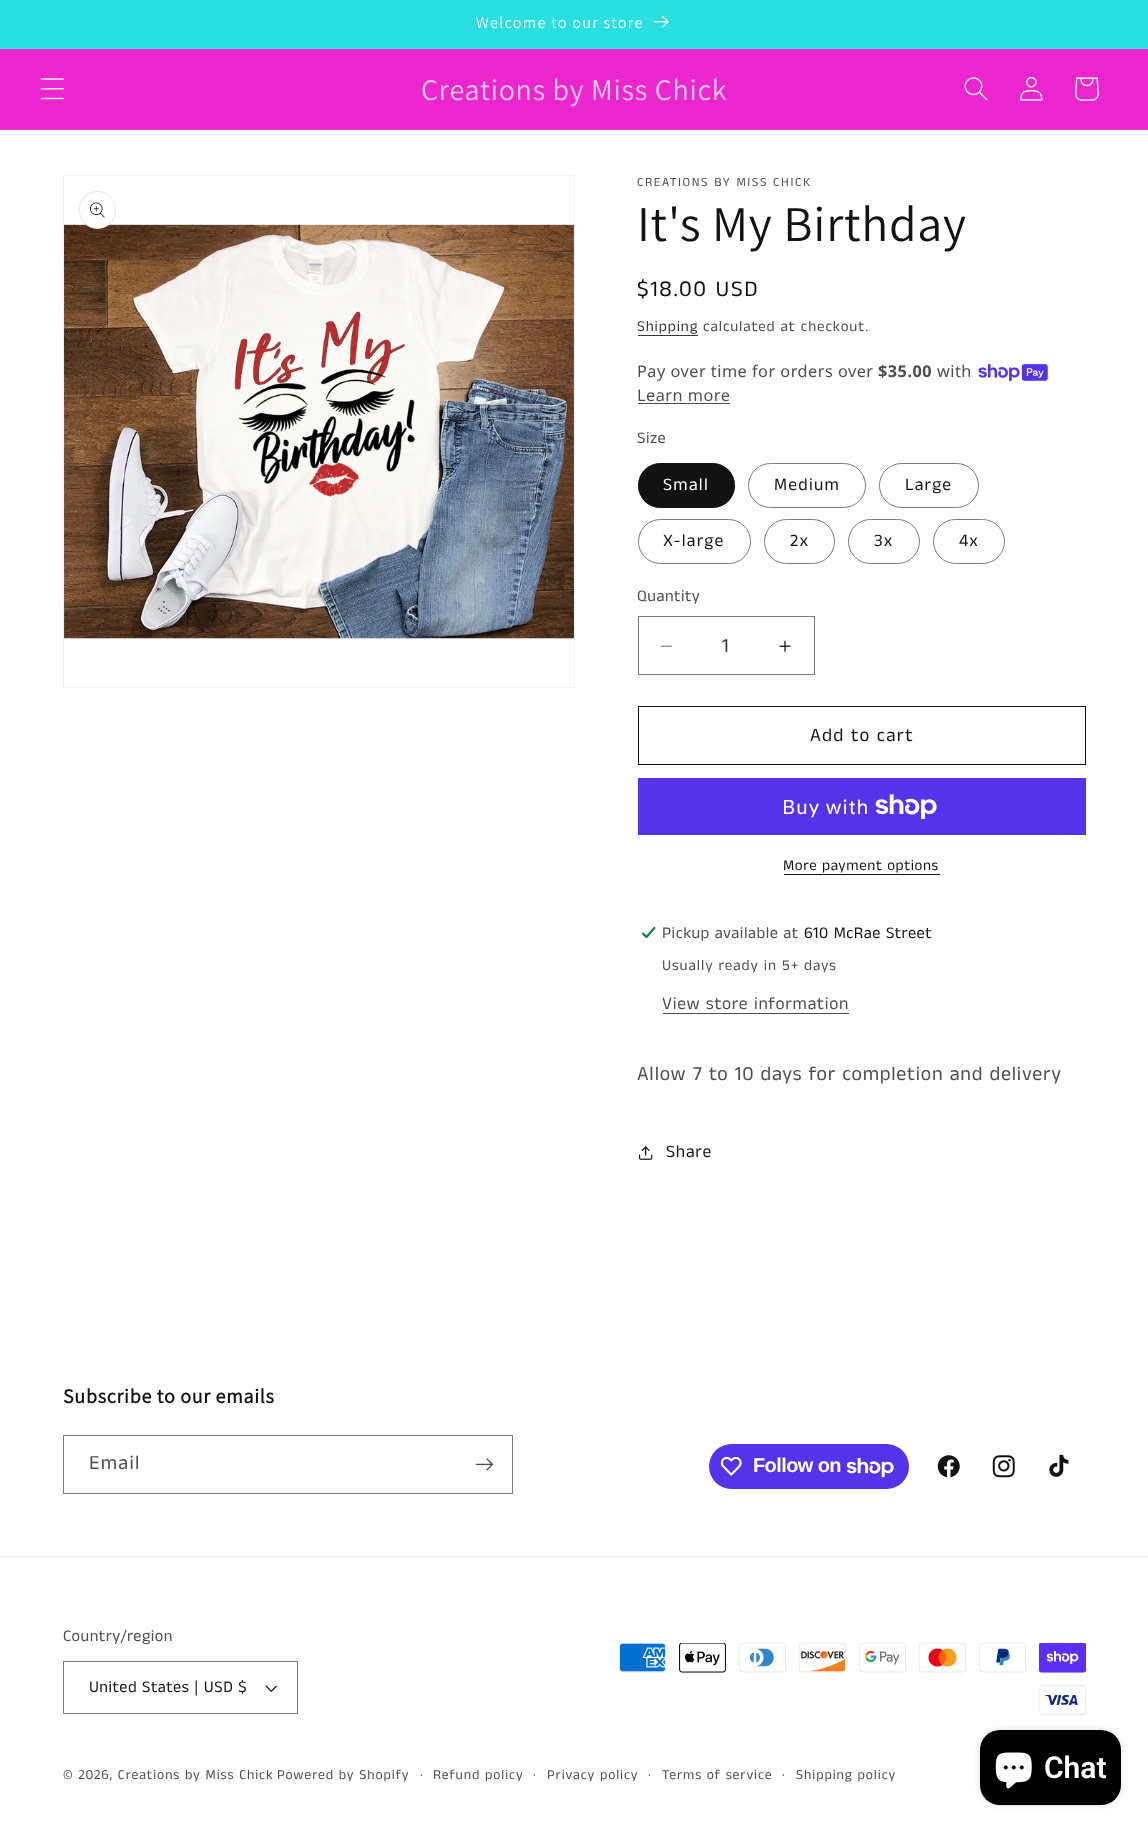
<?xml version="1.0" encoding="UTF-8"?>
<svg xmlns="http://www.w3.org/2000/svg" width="1148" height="1831">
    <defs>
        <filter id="blur1" x="-50%" y="-200%" width="200%" height="500%"><feGaussianBlur stdDeviation="3"/></filter>
    </defs>
    <rect width="100%" height="100%" fill="#FFFFFF"/>
    <rect x="0" y="0" width="1148" height="48" fill="#2ADFDF"/>
    <rect x="0" y="48" width="1148" height="1" fill="#3BE2E2"/>
    <text x="476" y="28" font-family="Assistant" font-size="16.25" letter-spacing="1.25" fill="#FFFFFF">Welcome to our store</text>
    <image x="654" y="15" width="15" height="13" href="img_01.png"/>
    <rect x="0" y="49" width="1148" height="80" fill="#EC26CF"/>
    <rect x="0" y="129" width="1148" height="1" fill="#EE37D3"/>
    <image x="40" y="78" width="24" height="22" href="img_02.png"/>
    <text x="421" y="100" font-family="Assistant" font-size="30" letter-spacing="0.75" fill="#FAC9F3">Creations by Miss Chick</text>
    <image x="964" y="77" width="24" height="24" href="img_03.png"/>
    <image x="1020" y="76" width="23" height="25" href="img_04.png"/>
    <image x="1075" y="77" width="24" height="24" href="img_05.png"/>
    <rect x="63.5" y="175.5" width="511" height="512" fill="none" stroke="#F3F3F3"/>
    <image x="64" y="224" width="510" height="415" href="img_07.png"/>
    <rect x="79" y="191" width="37" height="38" rx="18.5" fill="#FFFFFF"/>
    <rect x="79.5" y="191.5" width="36" height="37" rx="18" fill="none" stroke="#121212" stroke-opacity="0.1"/>
    <image x="90" y="202" width="15" height="16" href="img_06.png"/>
    <text x="637" y="186" font-family="Anek Tamil" font-size="12.5" letter-spacing="1.6" fill="#4D4D4D">CREATIONS BY MISS CHICK</text>
    <text x="637" y="241" font-family="Assistant" font-size="50" letter-spacing="0.75" fill="#121212">It's My Birthday</text>
    <text x="637" y="296" font-family="Anek Tamil" font-size="22.5" letter-spacing="1.6" fill="#121212">$18.00 USD</text>
    <text x="637" y="331" font-family="Anek Tamil" font-size="15" letter-spacing="0.9" fill="#363636">Shipping</text>
    <rect x="638" y="335" width="60" height="1" fill="#363636"/>
    <text x="703" y="331" font-family="Anek Tamil" font-size="15" letter-spacing="0.9" fill="#4D4D4D">calculated at checkout.</text>
    <text x="637" y="377" font-family="Noto Sans" font-size="16.25" letter-spacing="0.5" fill="#4D4D4D">Pay over time for orders over</text>
    <text x="878" y="377" font-family="Noto Sans" font-size="16.25" font-weight="700" letter-spacing="0.5" fill="#4D4D4D">$35.00</text>
    <text x="937" y="377" font-family="Noto Sans" font-size="16.25" letter-spacing="0.5" fill="#4D4D4D">with</text>
    <image x="978" y="364" width="70" height="17" href="img_08.png"/>
    <text x="637" y="401" font-family="Noto Sans" font-size="16.25" letter-spacing="0.5" fill="#4D4D4D">Learn more</text>
    <rect x="638" y="403" width="92" height="1" fill="#4D4D4D"/>
    <text x="637" y="443" font-family="Anek Tamil" font-size="16.25" letter-spacing="0.5" fill="#4D4D4D">Size</text>
    <rect x="638" y="463" width="97" height="45" rx="22.5" fill="#121212"/>
    <rect x="638.5" y="463.5" width="96" height="44" rx="22" fill="none" stroke="#121212" stroke-opacity="0.55"/>
    <text x="663" y="490" font-family="Anek Tamil" font-size="17.5" letter-spacing="1.25" fill="#FFFFFF">Small</text>
    <rect x="748.5" y="463.5" width="117" height="44" rx="22" fill="none" stroke="#7D7D7D"/>
    <text x="774" y="490" font-family="Anek Tamil" font-size="17.5" letter-spacing="1.25" fill="#121212">Medium</text>
    <rect x="879.5" y="463.5" width="99" height="44" rx="22" fill="none" stroke="#7D7D7D"/>
    <text x="905" y="490" font-family="Anek Tamil" font-size="17.5" letter-spacing="1.25" fill="#121212">Large</text>
    <rect x="638.5" y="519.5" width="112" height="44" rx="22" fill="none" stroke="#7D7D7D"/>
    <text x="663" y="546" font-family="Anek Tamil" font-size="17.5" letter-spacing="1.25" fill="#121212">X-large</text>
    <rect x="764.5" y="519.5" width="70" height="44" rx="22" fill="none" stroke="#7D7D7D"/>
    <text x="790" y="546" font-family="Anek Tamil" font-size="17.5" letter-spacing="1.25" fill="#121212">2x</text>
    <rect x="848.5" y="519.5" width="71" height="44" rx="22" fill="none" stroke="#7D7D7D"/>
    <text x="874" y="546" font-family="Anek Tamil" font-size="17.5" letter-spacing="1.25" fill="#121212">3x</text>
    <rect x="933.5" y="519.5" width="71" height="44" rx="22" fill="none" stroke="#7D7D7D"/>
    <text x="959" y="546" font-family="Anek Tamil" font-size="17.5" letter-spacing="1.25" fill="#121212">4x</text>
    <text x="637" y="601" font-family="Anek Tamil" font-size="16.25" letter-spacing="0.5" fill="#4D4D4D">Quantity</text>
    <image x="660" y="645" width="12" height="2" href="img_09.png"/>
    <image x="779" y="640" width="12" height="12" href="img_10.png"/>
    <rect x="638.5" y="616.5" width="176" height="58" fill="none" stroke="#7D7D7D"/>
    <text x="722" y="652" font-family="Anek Tamil" font-size="20" fill="#363636">1</text>
    <rect x="638.5" y="706.5" width="447" height="58" fill="none" stroke="#121212"/>
    <text x="810" y="741" font-family="Anek Tamil" font-size="18.75" letter-spacing="1.25" fill="#121212">Add to cart</text>
    <rect x="638" y="778" width="448" height="57" fill="#5433EB"/>
    <text x="782" y="814" font-family="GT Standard" font-size="20" letter-spacing="0.75" fill="#FFFFFF">Buy with</text>
    <image x="875" y="794" width="62" height="25" href="img_11.png"/>
    <text x="783" y="870" font-family="Anek Tamil" font-size="15" letter-spacing="0.6" fill="#121212">More payment options</text>
    <rect x="784" y="874" width="156" height="1" fill="#121212"/>
    <image x="641" y="926" width="15" height="13" href="img_12.png"/>
    <text x="662" y="938" font-family="Anek Tamil" font-size="16.25" letter-spacing="0.5" fill="#4D4D4D">Pickup available at</text>
    <text x="804" y="938" font-family="Anek Tamil" font-size="16.25" letter-spacing="0.5" fill="#121212">610 McRae Street</text>
    <text x="662" y="970" font-family="Anek Tamil" font-size="15" letter-spacing="0.9" fill="#4D4D4D">Usually ready in 5+ days</text>
    <text x="662" y="1009" font-family="Anek Tamil" font-size="17.5" letter-spacing="0.75" fill="#4D4D4D">View store information</text>
    <rect x="663" y="1013" width="186" height="1" fill="#4D4D4D"/>
    <text x="637" y="1080" font-family="Anek Tamil" font-size="20" letter-spacing="0.75" fill="#4D4D4D">Allow 7 to 10 days for completion and delivery</text>
    <image x="638" y="1146" width="15" height="14" href="img_13.png"/>
    <text x="666" y="1157" font-family="Anek Tamil" font-size="17.5" letter-spacing="0.75" fill="#121212">Share</text>
    <text x="63" y="1403" font-family="Assistant" font-size="20" font-weight="700" letter-spacing="0.75" fill="#121212">Subscribe to our emails</text>
    <rect x="63.5" y="1435.5" width="449" height="58" fill="none" stroke="#7D7D7D"/>
    <text x="89" y="1469" font-family="Anek Tamil" font-size="20" letter-spacing="1.25" fill="#4D4D4D">Email</text>
    <image x="475" y="1458" width="18" height="13" href="img_14.png"/>
    <rect x="709" y="1444" width="200" height="45" rx="22.5" fill="#5433EB"/>
    <image x="720" y="1456" width="22" height="20" href="img_15.png"/>
    <text x="753" y="1472" font-family="Liberation Sans" font-size="20" font-weight="700" letter-spacing="-0.6" fill="#FFFFFF">Follow on</text>
    <image x="846" y="1458" width="48" height="20" href="img_16.png"/>
    <image x="937" y="1455" width="23" height="23" href="img_17.png"/>
    <image x="992" y="1455" width="23" height="23" href="img_18.png"/>
    <image x="1049" y="1454" width="20" height="23" href="img_19.png"/>
    <rect x="0" y="1556" width="1148" height="1" fill="#ECECEC"/>
    <text x="63" y="1641" font-family="Anek Tamil" font-size="16.25" letter-spacing="0.5" fill="#4D4D4D">Country/region</text>
    <image x="265" y="1685" width="12" height="7" href="img_20.png"/>
    <rect x="63.5" y="1661.5" width="234" height="52" fill="none" stroke="#7D7D7D"/>
    <text x="89" y="1692" font-family="Anek Tamil" font-size="16.25" letter-spacing="0.5" fill="#121212">United States | USD $</text>
    <image x="619" y="1643" width="47" height="30" href="img_21.png"/>
    <image x="679" y="1643" width="47" height="30" href="img_22.png"/>
    <image x="739" y="1643" width="47" height="30" href="img_23.png"/>
    <image x="799" y="1643" width="47" height="30" href="img_24.png"/>
    <image x="859" y="1643" width="47" height="30" href="img_25.png"/>
    <image x="919" y="1643" width="47" height="30" href="img_26.png"/>
    <image x="979" y="1643" width="47" height="30" href="img_27.png"/>
    <image x="1039" y="1643" width="47" height="30" href="img_28.png"/>
    <image x="1039" y="1685" width="47" height="30" href="img_29.png"/>
    <text x="63" y="1779" font-family="Anek Tamil" font-size="13.75" letter-spacing="0.9" fill="#4D4D4D">© 2026, Creations by Miss Chick</text>
    <text x="277" y="1779" font-family="Anek Tamil" font-size="13.75" letter-spacing="0.9" fill="#4D4D4D">Powered by Shopify</text>
    <text x="420" y="1779" font-family="Anek Tamil" font-size="15" letter-spacing="0.9" fill="#4D4D4D">·</text>
    <text x="433" y="1779" font-family="Anek Tamil" font-size="13.75" letter-spacing="0.9" fill="#4D4D4D">Refund policy</text>
    <text x="533" y="1779" font-family="Anek Tamil" font-size="15" letter-spacing="0.9" fill="#4D4D4D">·</text>
    <text x="547" y="1779" font-family="Anek Tamil" font-size="13.75" letter-spacing="0.9" fill="#4D4D4D">Privacy policy</text>
    <text x="648" y="1779" font-family="Anek Tamil" font-size="15" letter-spacing="0.9" fill="#4D4D4D">·</text>
    <text x="662" y="1779" font-family="Anek Tamil" font-size="13.75" letter-spacing="0.9" fill="#4D4D4D">Terms of service</text>
    <text x="782" y="1779" font-family="Anek Tamil" font-size="15" letter-spacing="0.9" fill="#4D4D4D">·</text>
    <text x="796" y="1779" font-family="Anek Tamil" font-size="13.75" letter-spacing="0.9" fill="#4D4D4D">Shipping policy</text>
    <rect x="980" y="1730" width="141" height="75" rx="20" fill="#000000" fill-opacity="0.15" filter="url(#blur1)"/>
    <rect x="980" y="1730" width="141" height="75" rx="20" fill="#000000"/>
    <image x="995" y="1752" width="37" height="37" href="img_30.png"/>
    <text x="1044" y="1778" font-family="Roboto" font-size="30" font-weight="600" fill="#FFFFFF">Chat</text>
</svg>
